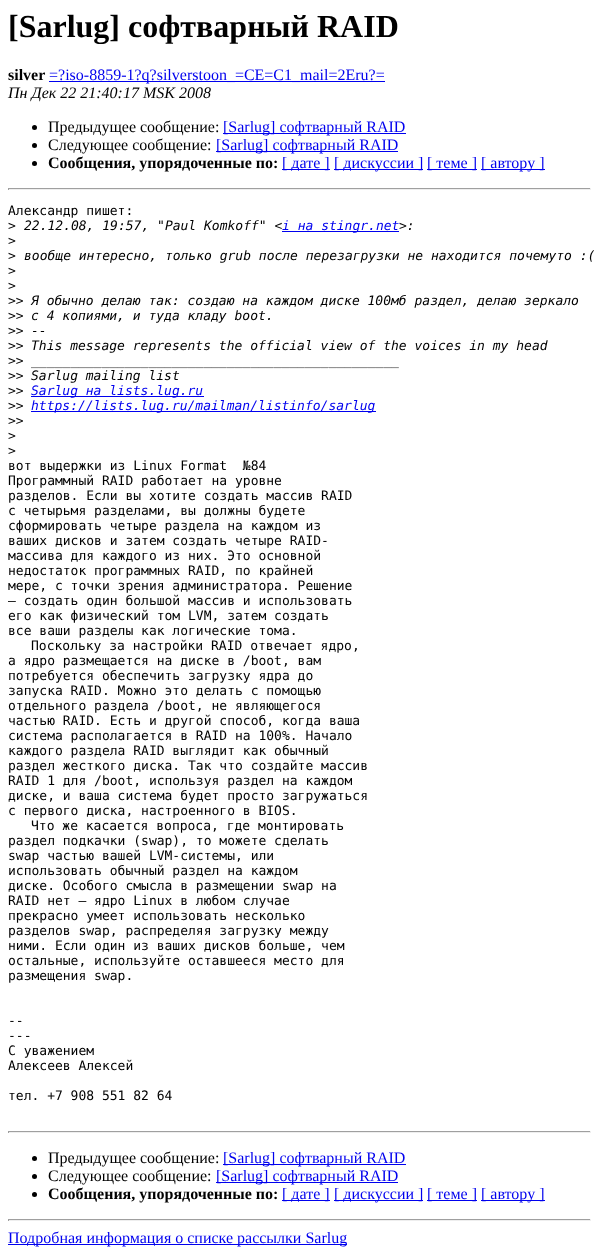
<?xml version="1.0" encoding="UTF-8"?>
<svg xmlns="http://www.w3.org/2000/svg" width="599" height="1256">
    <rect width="100%" height="100%" fill="#FFFFFF"/>
    <text x="8" y="37" font-family="Liberation Serif" font-size="32" font-weight="700" fill="#000000">[Sarlug] софтварный RAID</text>
    <text x="8" y="80" font-family="Liberation Serif" font-size="16" font-weight="700" fill="#000000">silver</text>
    <rect x="49" y="81" width="336" height="1" fill="#0000EE"/>
    <text x="49" y="80" font-family="Liberation Serif" font-size="16" fill="#0000EE">=?iso-8859-1?q?silverstoon_=CE=C1_mail=2Eru?=</text>
    <text x="8" y="98" font-family="Liberation Serif" font-size="16" font-style="italic" fill="#000000">Пн Дек 22 21:40:17 MSK 2008</text>
    <circle cx="34.5" cy="127.5" r="2.5" fill="#000000"/>
    <text x="48" y="132" font-family="Liberation Serif" font-size="16" fill="#000000">Предыдущее сообщение:</text>
    <rect x="223" y="133" width="183" height="1" fill="#0000EE"/>
    <text x="223" y="132" font-family="Liberation Serif" font-size="16" fill="#0000EE">[Sarlug] софтварный RAID</text>
    <circle cx="34.5" cy="145.5" r="2.5" fill="#000000"/>
    <text x="48" y="150" font-family="Liberation Serif" font-size="16" fill="#000000">Следующее сообщение:</text>
    <rect x="216" y="151" width="182" height="1" fill="#0000EE"/>
    <text x="216" y="150" font-family="Liberation Serif" font-size="16" fill="#0000EE">[Sarlug] софтварный RAID</text>
    <circle cx="34.5" cy="163.5" r="2.5" fill="#000000"/>
    <text x="48" y="168" font-family="Liberation Serif" font-size="16" font-weight="700" fill="#000000">Сообщения, упорядоченные по:</text>
    <rect x="282" y="169" width="48" height="1" fill="#0000EE"/>
    <text x="282" y="168" font-family="Liberation Serif" font-size="16" fill="#0000EE">[ дате ]</text>
    <rect x="334" y="169" width="89" height="1" fill="#0000EE"/>
    <text x="334" y="168" font-family="Liberation Serif" font-size="16" fill="#0000EE">[ дискуссии ]</text>
    <rect x="427" y="169" width="50" height="1" fill="#0000EE"/>
    <text x="427" y="168" font-family="Liberation Serif" font-size="16" fill="#0000EE">[ теме ]</text>
    <rect x="481" y="169" width="64" height="1" fill="#0000EE"/>
    <text x="481" y="168" font-family="Liberation Serif" font-size="16" fill="#0000EE">[ автору ]</text>
    <rect x="8" y="188" width="583" height="1" fill="#9F9F9F"/>
    <rect x="590" y="188" width="1" height="2" fill="#EEEEEE"/>
    <rect x="8" y="189" width="583" height="1" fill="#EEEEEE"/>
    <rect x="8" y="188" width="1" height="2" fill="#9F9F9F"/>
    <text font-family="DejaVu Sans Mono" font-size="13" fill="#000000">
        <tspan x="8" y="215">Александр пишет:</tspan>
        <tspan x="8" y="230">&gt;</tspan>
    </text>
    <text x="24" y="230" font-family="DejaVu Sans Mono" font-size="13" font-style="italic" fill="#000000">22.12.08, 19:57, "Paul Komkoff" &lt;</text>
    <rect x="282" y="231" width="117" height="1" fill="#0000EE"/>
    <text x="282" y="230" font-family="DejaVu Sans Mono" font-size="13" font-style="italic" fill="#0000EE">i на stingr.net</text>
    <text x="399" y="230" font-family="DejaVu Sans Mono" font-size="13" font-style="italic" fill="#000000">&gt;:</text>
    <text font-family="DejaVu Sans Mono" font-size="13" fill="#000000">
        <tspan x="8" y="245">&gt;</tspan>
        <tspan x="8" y="260">&gt;</tspan>
    </text>
    <text x="24" y="260" font-family="DejaVu Sans Mono" font-size="13" font-style="italic" fill="#000000">вообще интересно, только grub после перезагрузки не находится почемуто :(</text>
    <text font-family="DejaVu Sans Mono" font-size="13" fill="#000000">
        <tspan x="8" y="275">&gt;</tspan>
        <tspan x="8" y="290">&gt;</tspan>
        <tspan x="8" y="305">&gt;&gt;</tspan>
    </text>
    <text x="31" y="305" font-family="DejaVu Sans Mono" font-size="13" font-style="italic" fill="#000000">Я обычно делаю так: создаю на каждом диске 100мб раздел, делаю зеркало</text>
    <text x="8" y="320" font-family="DejaVu Sans Mono" font-size="13" fill="#000000">&gt;&gt;</text>
    <text x="31" y="320" font-family="DejaVu Sans Mono" font-size="13" font-style="italic" fill="#000000">с 4 копиями, и туда кладу boot.</text>
    <text x="8" y="335" font-family="DejaVu Sans Mono" font-size="13" fill="#000000">&gt;&gt;</text>
    <text x="31" y="335" font-family="DejaVu Sans Mono" font-size="13" font-style="italic" fill="#000000">--</text>
    <text x="8" y="350" font-family="DejaVu Sans Mono" font-size="13" fill="#000000">&gt;&gt;</text>
    <text x="31" y="350" font-family="DejaVu Sans Mono" font-size="13" font-style="italic" fill="#000000">This message represents the official view of the voices in my head</text>
    <text x="8" y="365" font-family="DejaVu Sans Mono" font-size="13" fill="#000000">&gt;&gt;</text>
    <text x="31" y="365" font-family="DejaVu Sans Mono" font-size="13" font-style="italic" fill="#000000">_______________________________________________</text>
    <text x="8" y="380" font-family="DejaVu Sans Mono" font-size="13" fill="#000000">&gt;&gt;</text>
    <text x="31" y="380" font-family="DejaVu Sans Mono" font-size="13" font-style="italic" fill="#000000">Sarlug mailing list</text>
    <text x="8" y="395" font-family="DejaVu Sans Mono" font-size="13" fill="#000000">&gt;&gt;</text>
    <rect x="31" y="396" width="173" height="1" fill="#0000EE"/>
    <text x="31" y="395" font-family="DejaVu Sans Mono" font-size="13" font-style="italic" fill="#0000EE">Sarlug на lists.lug.ru</text>
    <text x="8" y="410" font-family="DejaVu Sans Mono" font-size="13" fill="#000000">&gt;&gt;</text>
    <rect x="31" y="411" width="345" height="1" fill="#0000EE"/>
    <text x="31" y="410" font-family="DejaVu Sans Mono" font-size="13" font-style="italic" fill="#0000EE">https://lists.lug.ru/mailman/listinfo/sarlug</text>
    <text font-family="DejaVu Sans Mono" font-size="13" fill="#000000" xml:space="preserve"><tspan x="8" y="425">&gt;&gt;</tspan><tspan x="8" y="440">&gt;</tspan><tspan x="8" y="455">&gt;</tspan><tspan x="8" y="470">вот выдержки из Linux Format  №84</tspan><tspan x="8" y="485">Программный RAID работает на уровне</tspan><tspan x="8" y="500">разделов. Если вы хотите создать массив RAID</tspan><tspan x="8" y="515">с четырьмя разделами, вы должны будете</tspan><tspan x="8" y="530">сформировать четыре раздела на каждом из</tspan><tspan x="8" y="545">ваших дисков и затем создать четыре RAID-</tspan><tspan x="8" y="560">массива для каждого из них. Это основной</tspan><tspan x="8" y="575">недостаток программных RAID, по крайней</tspan><tspan x="8" y="590">мере, с точки зрения администратора. Решение</tspan><tspan x="8" y="605">– создать один большой массив и использовать</tspan><tspan x="8" y="620">его как физический том LVM, затем создать</tspan><tspan x="8" y="635">все ваши разделы как логические тома.</tspan></text>
    <text x="31" y="650" font-family="DejaVu Sans Mono" font-size="13" fill="#000000">Поскольку за настройки RAID отвечает ядро,</text>
    <text font-family="DejaVu Sans Mono" font-size="13" fill="#000000">
        <tspan x="8" y="665">а ядро размещается на диске в /boot, вам</tspan>
        <tspan x="8" y="680">потребуется обеспечить загрузку ядра до</tspan>
        <tspan x="8" y="695">запуска RAID. Можно это делать с помощью</tspan>
        <tspan x="8" y="710">отдельного раздела /boot, не являющегося</tspan>
        <tspan x="8" y="725">частью RAID. Есть и другой способ, когда ваша</tspan>
        <tspan x="8" y="740">система располагается в RAID на 100%. Начало</tspan>
        <tspan x="8" y="755">каждого раздела RAID выглядит как обычный</tspan>
        <tspan x="8" y="770">раздел жесткого диска. Так что создайте массив</tspan>
        <tspan x="8" y="785">RAID 1 для /boot, используя раздел на каждом</tspan>
        <tspan x="8" y="800">диске, и ваша система будет просто загружаться</tspan>
        <tspan x="8" y="815">с первого диска, настроенного в BIOS.</tspan>
    </text>
    <text x="31" y="830" font-family="DejaVu Sans Mono" font-size="13" fill="#000000">Что же касается вопроса, где монтировать</text>
    <text font-family="DejaVu Sans Mono" font-size="13" fill="#000000">
        <tspan x="8" y="845">раздел подкачки (swap), то можете сделать</tspan>
        <tspan x="8" y="860">swap частью вашей LVM-системы, или</tspan>
        <tspan x="8" y="875">использовать обычный раздел на каждом</tspan>
        <tspan x="8" y="890">диске. Особого смысла в размещении swap на</tspan>
        <tspan x="8" y="905">RAID нет – ядро Linux в любом случае</tspan>
        <tspan x="8" y="920">прекрасно умеет использовать несколько</tspan>
        <tspan x="8" y="935">разделов swap, распределяя загрузку между</tspan>
        <tspan x="8" y="950">ними. Если один из ваших дисков больше, чем</tspan>
        <tspan x="8" y="965">остальные, используйте оставшееся место для</tspan>
        <tspan x="8" y="980">размещения swap.</tspan>
    </text>
    <text font-family="DejaVu Sans Mono" font-size="13" fill="#000000">
        <tspan x="8" y="1025">--</tspan>
        <tspan x="8" y="1040">---</tspan>
        <tspan x="8" y="1055">С уважением</tspan>
        <tspan x="8" y="1070">Алексеев Алексей</tspan>
    </text>
    <text x="8" y="1100" font-family="DejaVu Sans Mono" font-size="13" fill="#000000">тел. +7 908 551 82 64</text>
    <rect x="8" y="1131" width="583" height="1" fill="#9F9F9F"/>
    <rect x="590" y="1131" width="1" height="2" fill="#EEEEEE"/>
    <rect x="8" y="1132" width="583" height="1" fill="#EEEEEE"/>
    <rect x="8" y="1131" width="1" height="2" fill="#9F9F9F"/>
    <circle cx="34.5" cy="1158.5" r="2.5" fill="#000000"/>
    <text x="48" y="1163" font-family="Liberation Serif" font-size="16" fill="#000000">Предыдущее сообщение:</text>
    <rect x="223" y="1164" width="183" height="1" fill="#0000EE"/>
    <text x="223" y="1163" font-family="Liberation Serif" font-size="16" fill="#0000EE">[Sarlug] софтварный RAID</text>
    <circle cx="34.5" cy="1176.5" r="2.5" fill="#000000"/>
    <text x="48" y="1181" font-family="Liberation Serif" font-size="16" fill="#000000">Следующее сообщение:</text>
    <rect x="216" y="1182" width="182" height="1" fill="#0000EE"/>
    <text x="216" y="1181" font-family="Liberation Serif" font-size="16" fill="#0000EE">[Sarlug] софтварный RAID</text>
    <circle cx="34.5" cy="1194.5" r="2.5" fill="#000000"/>
    <text x="48" y="1199" font-family="Liberation Serif" font-size="16" font-weight="700" fill="#000000">Сообщения, упорядоченные по:</text>
    <rect x="282" y="1200" width="48" height="1" fill="#0000EE"/>
    <text x="282" y="1199" font-family="Liberation Serif" font-size="16" fill="#0000EE">[ дате ]</text>
    <rect x="334" y="1200" width="89" height="1" fill="#0000EE"/>
    <text x="334" y="1199" font-family="Liberation Serif" font-size="16" fill="#0000EE">[ дискуссии ]</text>
    <rect x="427" y="1200" width="50" height="1" fill="#0000EE"/>
    <text x="427" y="1199" font-family="Liberation Serif" font-size="16" fill="#0000EE">[ теме ]</text>
    <rect x="481" y="1200" width="64" height="1" fill="#0000EE"/>
    <text x="481" y="1199" font-family="Liberation Serif" font-size="16" fill="#0000EE">[ автору ]</text>
    <rect x="8" y="1219" width="583" height="1" fill="#9F9F9F"/>
    <rect x="590" y="1219" width="1" height="2" fill="#EEEEEE"/>
    <rect x="8" y="1220" width="583" height="1" fill="#EEEEEE"/>
    <rect x="8" y="1219" width="1" height="2" fill="#9F9F9F"/>
    <rect x="8" y="1244" width="339" height="1" fill="#0000EE"/>
    <text x="8" y="1243" font-family="Liberation Serif" font-size="16" fill="#0000EE">Подробная информация о списке рассылки Sarlug</text>
</svg>
